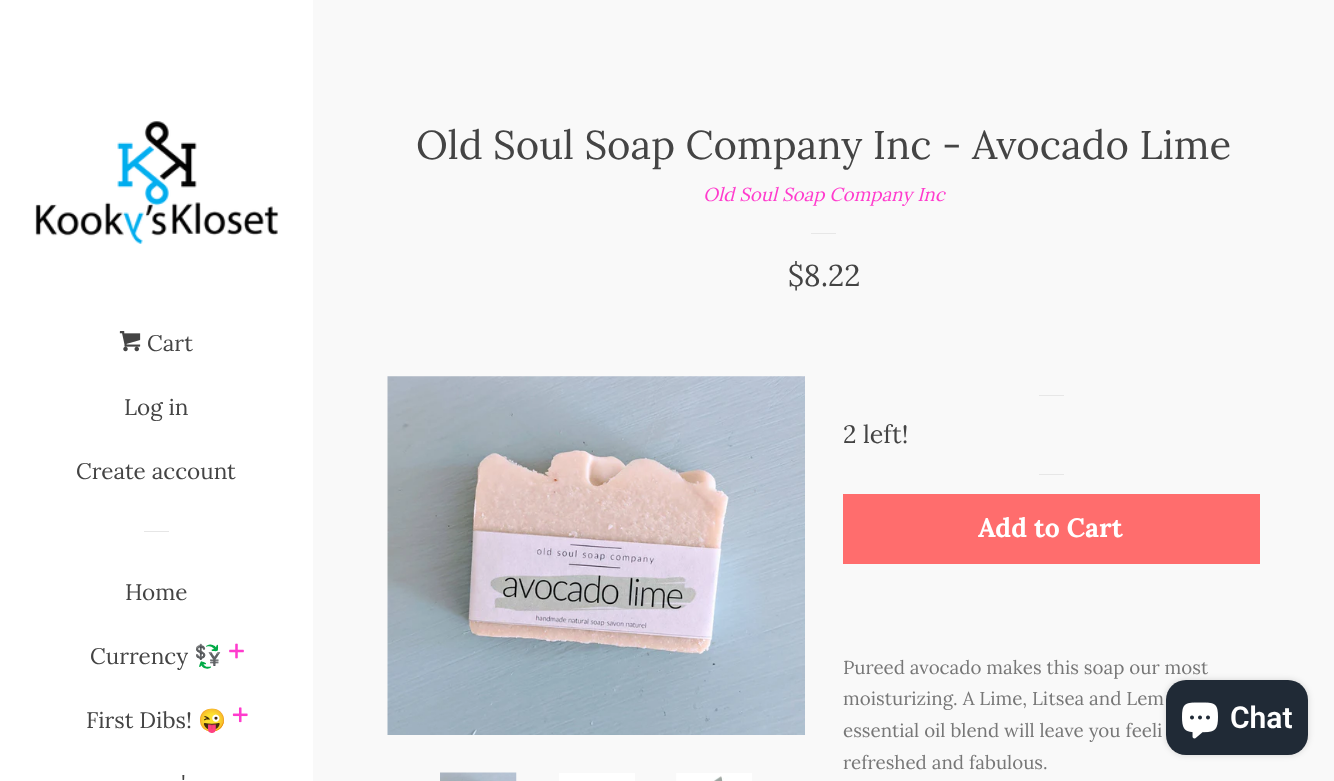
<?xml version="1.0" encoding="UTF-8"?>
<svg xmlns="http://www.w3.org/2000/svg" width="1334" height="781">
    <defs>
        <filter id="blur1" x="-50%" y="-200%" width="200%" height="500%"><feGaussianBlur stdDeviation="3"/></filter>
    </defs>
    <rect width="100%" height="100%" fill="#FFFFFF"/>
    <image x="35" y="121" width="244" height="123" href="img_01.png"/>
    <image x="119" y="331" width="22" height="21" href="img_02.png"/>
    <text x="147" y="351" font-family="Lora" font-size="22.5" fill="#444444">Cart</text>
    <text x="124" y="415" font-family="Lora" font-size="22.5" fill="#444444">Log in</text>
    <text x="76" y="479" font-family="Lora" font-size="22.5" fill="#444444">Create account</text>
    <rect x="144" y="531" width="25" height="1" fill="#E6E6E6"/>
    <text x="125" y="600" font-family="Lora" font-size="22.5" fill="#444444">Home</text>
    <text x="90" y="664" font-family="Lora" font-size="22.5" fill="#444444">Currency</text>
    <text x="194" y="664" font-family="Noto Color Emoji" font-size="22.5" fill="#444444">💱</text>
    <image x="229" y="643" width="15" height="16" href="img_03.png"/>
    <text x="86" y="728" font-family="Lora" font-size="22.5" fill="#444444">First Dibs!</text>
    <text x="198" y="728" font-family="Noto Color Emoji" font-size="22.5" fill="#444444">😜</text>
    <image x="232" y="707" width="16" height="16" href="img_04.png"/>
    <text x="181" y="791" font-family="Lora" font-size="22.5" fill="#444444">'</text>
    <rect x="313" y="0" width="1021" height="781" fill="#F9F9F9"/>
    <text x="416" y="159" font-family="Lora" font-size="40" fill="#444444">Old Soul Soap Company Inc - Avocado Lime</text>
    <text x="703" y="201" font-family="Lora" font-size="18.75" font-style="italic" fill="#FF3BCD">Old Soul Soap Company Inc</text>
    <rect x="811" y="233" width="25" height="1" fill="#E7E7E7"/>
    <text x="788" y="286" font-family="Lora" font-size="30" fill="#444444">$8.22</text>
    <image x="387" y="376" width="418" height="359" href="img_05.png"/>
    <image x="440" y="772" width="77" height="9" href="img_06.png"/>
    <rect x="559" y="773" width="76" height="8" fill="#FFFFFF"/>
    <image x="676" y="773" width="76" height="8" href="img_07.png"/>
    <rect x="1039" y="395" width="25" height="1" fill="#E7E7E7"/>
    <text x="843" y="443" font-family="Lora" font-size="25" fill="#444444">2 left!</text>
    <rect x="1039" y="474" width="25" height="1" fill="#E7E7E7"/>
    <rect x="843" y="494" width="417" height="70" fill="#FF6D6D"/>
    <text x="978" y="537" font-family="Lora" font-size="26.5" font-weight="700" fill="#FFFFFF">Add to Cart</text>
    <text font-family="Lora" font-size="18.75" fill="#777777">
        <tspan x="843" y="674">Pureed avocado makes this soap our most</tspan>
        <tspan x="843" y="705">moisturizing. A Lime, Litsea and Lem</tspan>
        <tspan x="843" y="737">essential oil blend will leave you feeli</tspan>
        <tspan x="843" y="769">refreshed and fabulous.</tspan>
    </text>
    <rect x="1166" y="680" width="142" height="75" rx="20" fill="#000000" fill-opacity="0.15" filter="url(#blur1)"/>
    <rect x="1166" y="680" width="142" height="75" rx="20" fill="#202A36"/>
    <image x="1182" y="702" width="36" height="37" href="img_08.png"/>
    <text x="1230" y="728" font-family="Roboto" font-size="30" font-weight="600" fill="#FFFFFF">Chat</text>
</svg>
